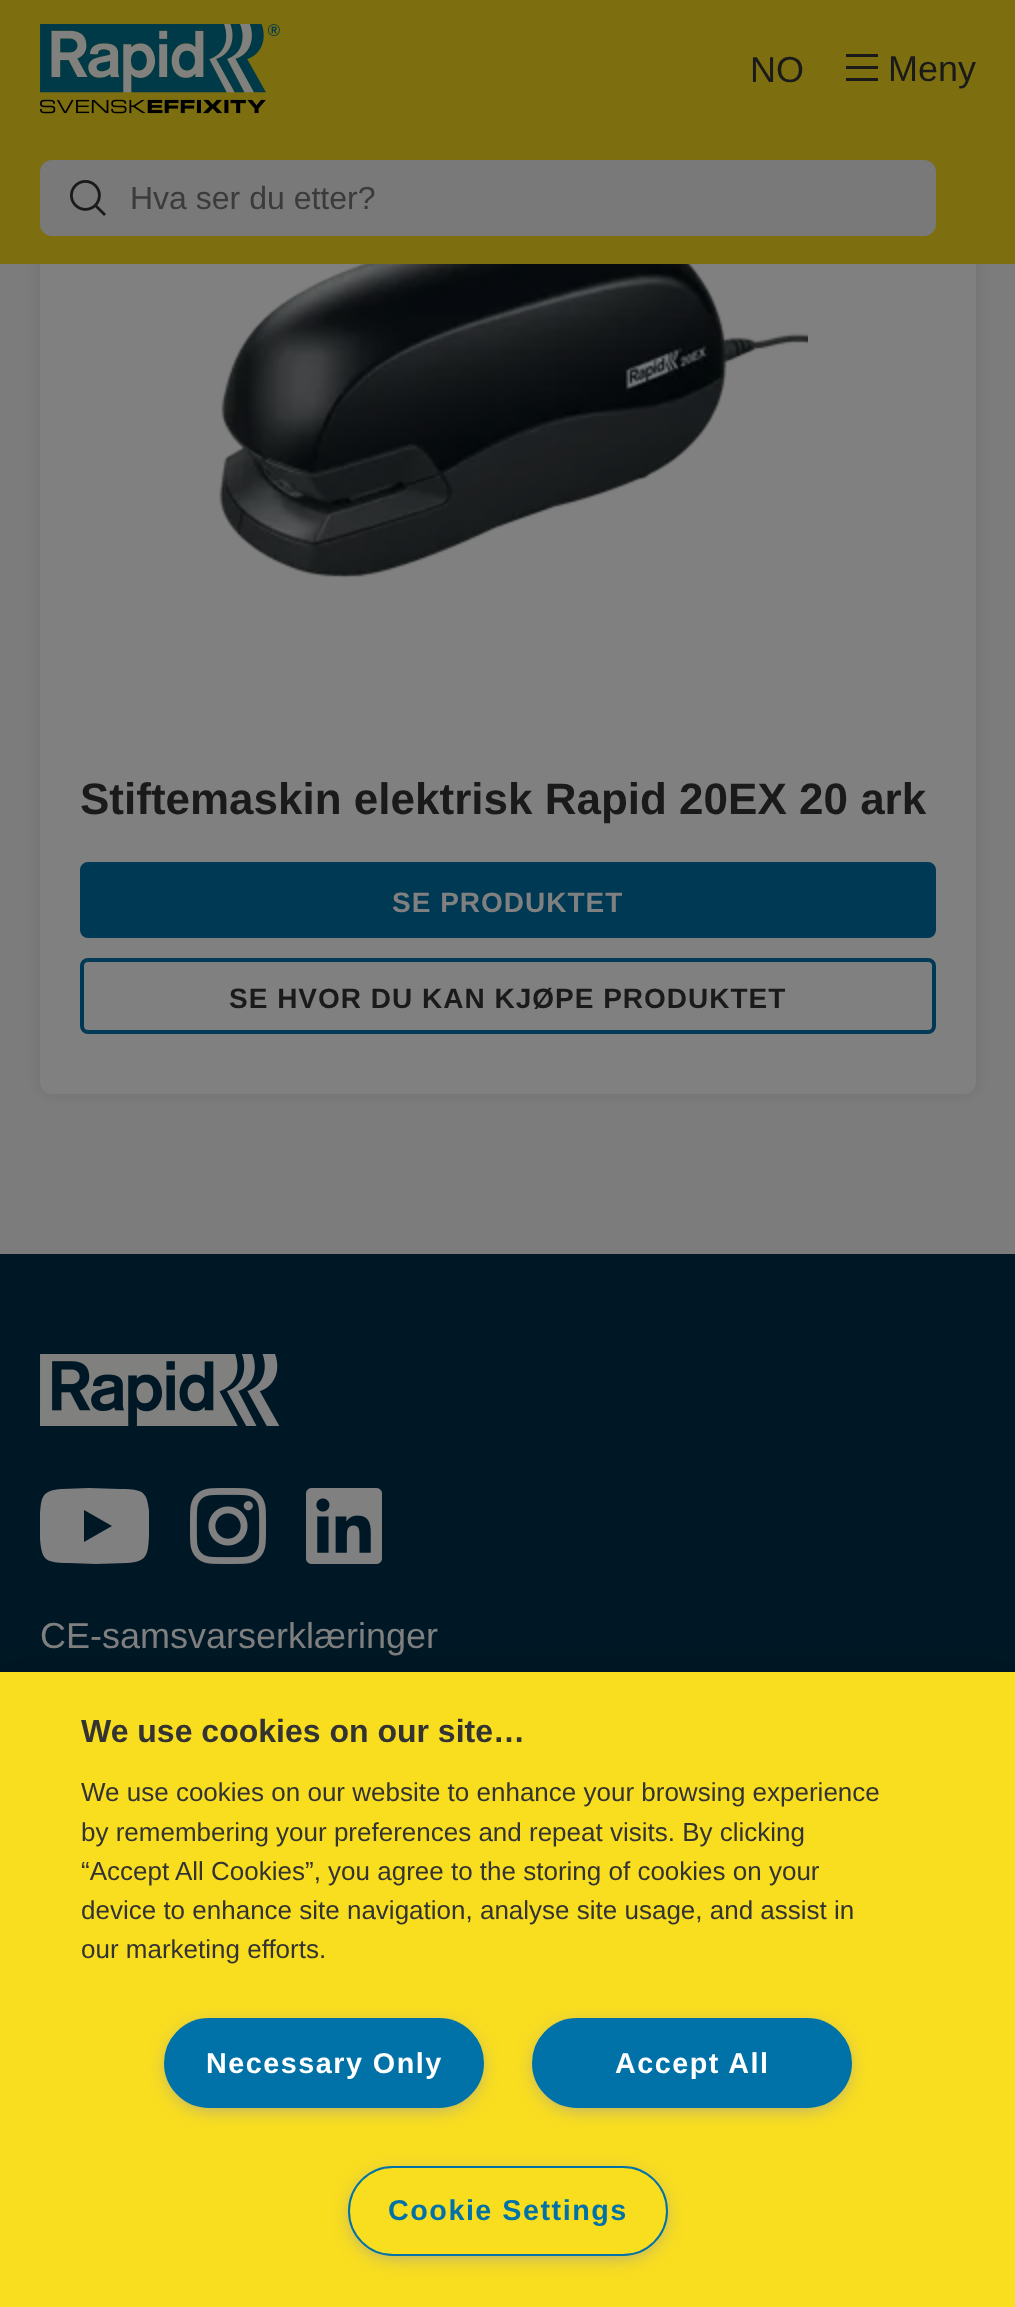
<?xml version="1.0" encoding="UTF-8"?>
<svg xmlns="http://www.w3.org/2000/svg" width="1015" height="2307">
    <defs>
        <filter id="blur1" x="-50%" y="-200%" width="200%" height="500%"><feGaussianBlur stdDeviation="8"/></filter>
        <clipPath id="clip1"><rect x="40" y="1488" width="109" height="76"/></clipPath>
        <filter id="blur2" x="-50%" y="-200%" width="200%" height="500%"><feGaussianBlur stdDeviation="18"/></filter>
        <filter id="blur3" x="-50%" y="-200%" width="200%" height="500%"><feGaussianBlur stdDeviation="10"/></filter>
    </defs>
    <rect width="100%" height="100%" fill="#7C7C7C"/>
    <rect x="40" y="18" width="936" height="1076" rx="12" fill="#000000" fill-opacity="0.1" filter="url(#blur1)"/>
    <rect x="40" y="18" width="936" height="1076" rx="12" fill="#808080"/>
    <rect x="0" y="0" width="1015" height="264" fill="#7D6F10"/>
    <image x="40" y="24" width="240" height="90" href="img_01.png"/>
    <text x="750" y="82" font-family="Liberation Sans" font-size="36" fill="#1A1A1A">NO</text>
    <rect x="40" y="160" width="896" height="76" rx="12" fill="#797979"/>
    <image x="70" y="180" width="36" height="36" href="img_02.png"/>
    <text x="130" y="209" font-family="Liberation Sans" font-size="32" fill="#3B3B3B">Hva ser du etter?</text>
    <rect x="846" y="66" width="32" height="3" fill="#1A1A1A"/>
    <rect x="846" y="54" width="32" height="3" fill="#1A1A1A"/>
    <rect x="846" y="78" width="32" height="3" fill="#1A1A1A"/>
    <text x="888" y="81" font-family="Liberation Sans" font-size="36" fill="#1A1A1A">Meny</text>
    <image x="219" y="264" width="589" height="314" href="img_03.png"/>
    <text x="80" y="814" font-family="Liberation Sans" font-size="44" font-weight="700" fill="#1A1A1A">Stiftemaskin elektrisk Rapid 20EX 20 ark</text>
    <rect x="82" y="864" width="852" height="72" rx="6" fill="#003954" stroke="#003954" stroke-width="4"/>
    <text x="392" y="912" font-family="Liberation Sans" font-size="28" font-weight="700" letter-spacing="1" fill="#808080">SE PRODUKTET</text>
    <rect x="82" y="960" width="852" height="72" rx="6" fill="none" stroke="#003954" stroke-width="4"/>
    <text x="229" y="1008" font-family="Liberation Sans" font-size="28" font-weight="700" letter-spacing="1" fill="#1A1A1A">SE HVOR DU KAN KJØPE PRODUKTET</text>
    <rect x="0" y="1254" width="1015" height="418" fill="#001825"/>
    <image x="40" y="1354" width="240" height="72" href="img_04.png"/>
    <g clip-path="url(#clip1)">
        <path d="M 147 1500 C 146 1496 143 1492 139 1491 C 133 1489 126 1489 120 1489 L 89 1488 L 62 1489 C 42 1490 41 1497 40 1516 C 40 1528 39 1541 42 1552 C 43 1556 46 1560 50 1561 C 56 1563 63 1563 69 1563 L 96 1564 L 127 1563 C 147 1562 148 1555 149 1536 C 150 1524 150 1511 147 1500 Z M 84 1542 V 1510 L 112 1526 Z" fill="#808080"/>
    </g>
    <image x="190" y="1488" width="76" height="76" href="img_05.png"/>
    <image x="306" y="1488" width="76" height="76" href="img_06.png"/>
    <text x="40" y="1648" font-family="Liberation Sans" font-size="36" fill="#808080">CE-samsvarserklæringer</text>
    <rect x="0" y="1672" width="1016" height="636" fill="#000000" fill-opacity="0.2" filter="url(#blur2)"/>
    <rect x="0" y="1672" width="1015" height="635" fill="#F9DD1F"/>
    <text x="81" y="1742" font-family="Liberation Sans" font-size="32" font-weight="700" fill="#333333">We use cookies on our site…</text>
    <text font-family="Liberation Sans" font-size="26" fill="#333333">
        <tspan x="81" y="1801">We use cookies on our website to enhance your browsing experience</tspan>
        <tspan x="81" y="1841">by remembering your preferences and repeat visits. By clicking</tspan>
        <tspan x="81" y="1880">“Accept All Cookies”, you agree to the storing of cookies on your</tspan>
        <tspan x="81" y="1919">device to enhance site navigation, analyse site usage, and assist in</tspan>
        <tspan x="81" y="1958">our marketing efforts.</tspan>
    </text>
    <rect x="170" y="2028" width="308" height="78" rx="39" fill="#999999" filter="url(#blur3)"/>
    <rect x="165" y="2019" width="318" height="88" rx="44" fill="#0072A8" stroke="#0072A8" stroke-width="2"/>
    <text x="206" y="2073" font-family="Liberation Sans" font-size="28.75" font-weight="700" letter-spacing="1.5" fill="#FFFFFF">Necessary Only</text>
    <rect x="538" y="2028" width="308" height="78" rx="39" fill="#999999" filter="url(#blur3)"/>
    <rect x="533" y="2019" width="318" height="88" rx="44" fill="#0072A8" stroke="#0072A8" stroke-width="2"/>
    <text x="615" y="2073" font-family="Liberation Sans" font-size="28.75" font-weight="700" letter-spacing="1.5" fill="#FFFFFF">Accept All</text>
    <rect x="354" y="2176" width="308" height="78" rx="39" fill="#999999" filter="url(#blur3)"/>
    <rect x="349" y="2167" width="318" height="88" rx="44" fill="#F9DD1F" stroke="#0072A8" stroke-width="2"/>
    <text x="388" y="2220" font-family="Liberation Sans" font-size="28.75" font-weight="700" letter-spacing="1.5" fill="#0072A8">Cookie Settings</text>
</svg>
